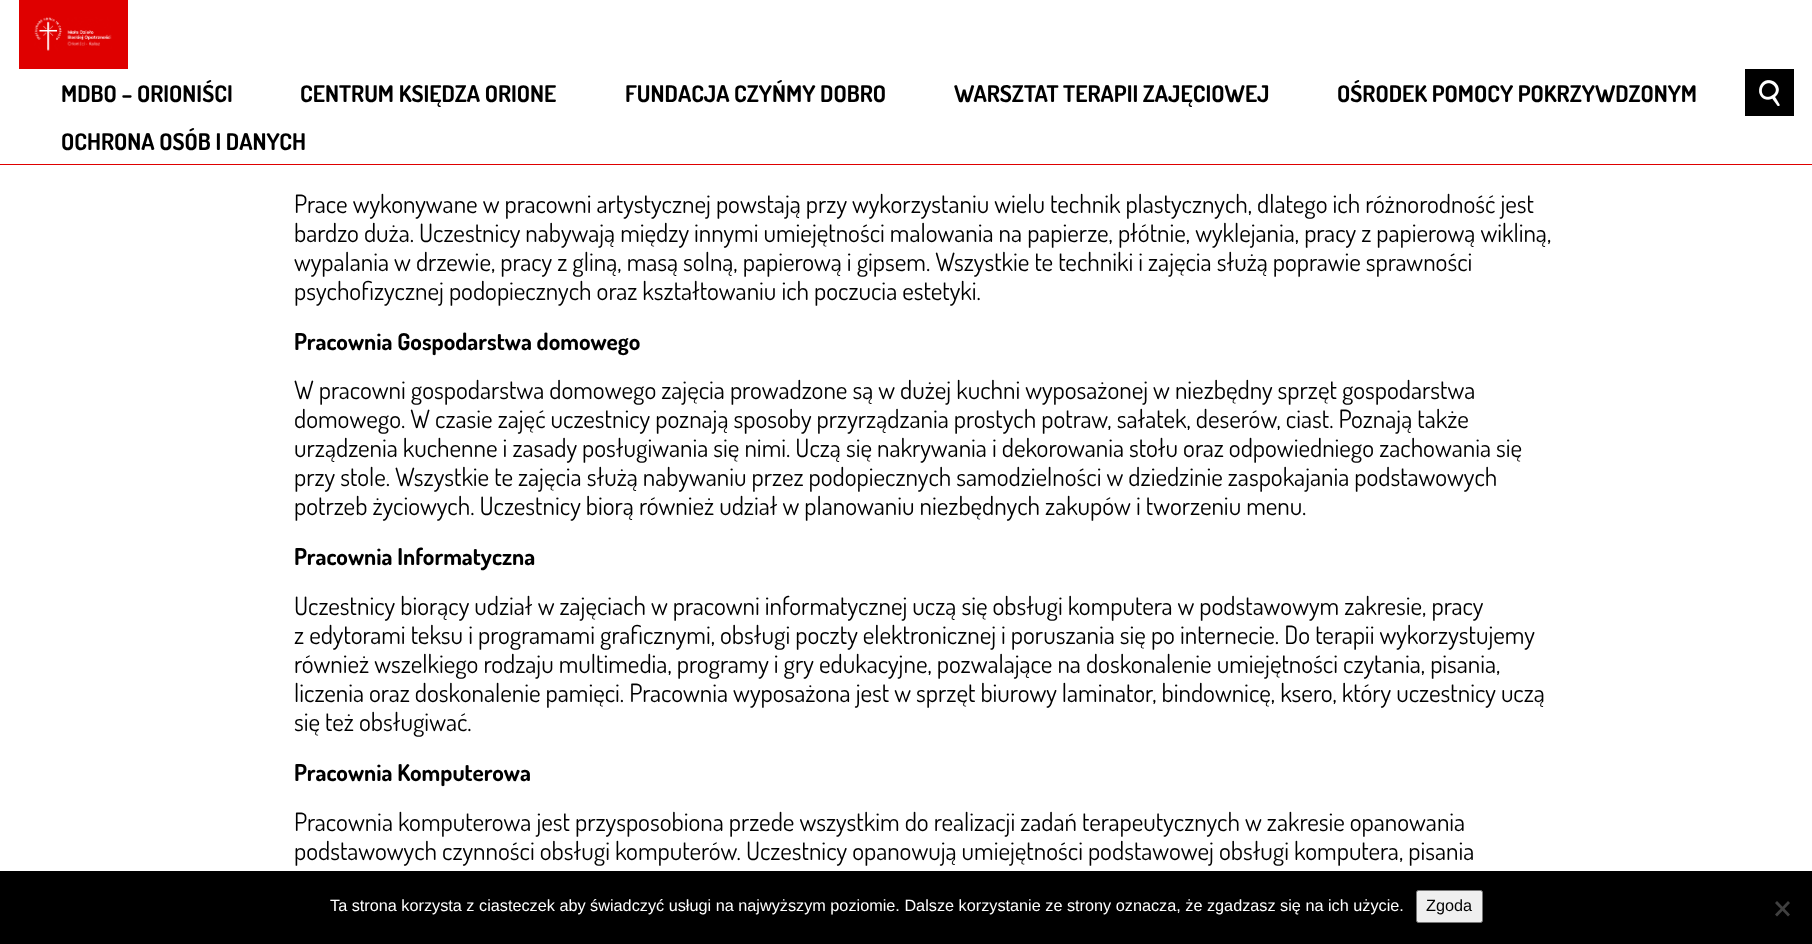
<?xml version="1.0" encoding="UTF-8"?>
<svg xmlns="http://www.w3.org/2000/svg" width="1812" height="944">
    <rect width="100%" height="100%" fill="#FFFFFF"/>
    <rect x="0" y="164" width="1812" height="1" fill="#DF0000"/>
    <rect x="19" y="0" width="109" height="69" fill="#DF0000"/>
    <image x="34" y="17" width="78" height="34" href="img_01.png"/>
    <text x="61" y="102" font-family="Dosis" font-size="23.1" font-weight="700" fill="#000000">MDBO – ORIONIŚCI</text>
    <text x="300" y="102" font-family="Dosis" font-size="23.1" font-weight="700" fill="#000000">CENTRUM KSIĘDZA ORIONE</text>
    <text x="625" y="102" font-family="Dosis" font-size="23.1" font-weight="700" fill="#000000">FUNDACJA CZYŃMY DOBRO</text>
    <text x="954" y="102" font-family="Dosis" font-size="23.1" font-weight="700" fill="#000000">WARSZTAT TERAPII ZAJĘCIOWEJ</text>
    <text x="1337" y="102" font-family="Dosis" font-size="23.1" font-weight="700" fill="#000000">OŚRODEK POMOCY POKRZYWDZONYM</text>
    <text x="61" y="150" font-family="Dosis" font-size="23.1" font-weight="700" fill="#000000">OCHRONA OSÓB I DANYCH</text>
    <rect x="1745" y="69" width="49" height="47" fill="#000000"/>
    <image x="1759" y="80" width="21" height="26" href="img_02.png"/>
    <text font-family="Dosis" font-size="25.2" fill="#000000">
        <tspan x="294" y="213">Prace wykonywane w pracowni artystycznej powstają przy wykorzystaniu wielu technik plastycznych, dlatego ich różnorodność jest</tspan>
        <tspan x="294" y="242">bardzo duża. Uczestnicy nabywają między innymi umiejętności malowania na papierze, płótnie, wyklejania, pracy z papierową wikliną,</tspan>
        <tspan x="294" y="271">wypalania w drzewie, pracy z gliną, masą solną, papierową i gipsem. Wszystkie te techniki i zajęcia służą poprawie sprawności</tspan>
        <tspan x="294" y="300">psychofizycznej podopiecznych oraz kształtowaniu ich poczucia estetyki.</tspan>
    </text>
    <text x="294" y="350" font-family="Dosis" font-size="23.3" font-weight="700" fill="#000000">Pracownia Gospodarstwa domowego</text>
    <text font-family="Dosis" font-size="25.2" fill="#000000">
        <tspan x="294" y="399">W pracowni gospodarstwa domowego zajęcia prowadzone są w dużej kuchni wyposażonej w niezbędny sprzęt gospodarstwa</tspan>
        <tspan x="294" y="428">domowego. W czasie zajęć uczestnicy poznają sposoby przyrządzania prostych potraw, sałatek, deserów, ciast. Poznają także</tspan>
        <tspan x="294" y="457">urządzenia kuchenne i zasady posługiwania się nimi. Uczą się nakrywania i dekorowania stołu oraz odpowiedniego zachowania się</tspan>
        <tspan x="294" y="486">przy stole. Wszystkie te zajęcia służą nabywaniu przez podopiecznych samodzielności w dziedzinie zaspokajania podstawowych</tspan>
        <tspan x="294" y="515">potrzeb życiowych. Uczestnicy biorą również udział w planowaniu niezbędnych zakupów i tworzeniu menu.</tspan>
    </text>
    <text x="294" y="565" font-family="Dosis" font-size="23.3" font-weight="700" fill="#000000">Pracownia Informatyczna</text>
    <text font-family="Dosis" font-size="25.2" fill="#000000">
        <tspan x="294" y="615">Uczestnicy biorący udział w zajęciach w pracowni informatycznej uczą się obsługi komputera w podstawowym zakresie, pracy</tspan>
        <tspan x="294" y="644">z edytorami teksu i programami graficznymi, obsługi poczty elektronicznej i poruszania się po internecie. Do terapii wykorzystujemy</tspan>
        <tspan x="294" y="673">również wszelkiego rodzaju multimedia, programy i gry edukacyjne, pozwalające na doskonalenie umiejętności czytania, pisania,</tspan>
        <tspan x="294" y="702">liczenia oraz doskonalenie pamięci. Pracownia wyposażona jest w sprzęt biurowy laminator, bindownicę, ksero, który uczestnicy uczą</tspan>
        <tspan x="294" y="731">się też obsługiwać.</tspan>
    </text>
    <text x="294" y="781" font-family="Dosis" font-size="23.3" font-weight="700" fill="#000000">Pracownia Komputerowa</text>
    <text font-family="Dosis" font-size="25.2" fill="#000000">
        <tspan x="294" y="831">Pracownia komputerowa jest przysposobiona przede wszystkim do realizacji zadań terapeutycznych w zakresie opanowania</tspan>
        <tspan x="294" y="860">podstawowych czynności obsługi komputerów. Uczestnicy opanowują umiejętności podstawowej obsługi komputera, pisania</tspan>
    </text>
    <rect x="0" y="871" width="1812" height="73" fill="#000000"/>
    <text x="330" y="911" font-family="Liberation Sans" font-size="16.25" fill="#FFFFFF">Ta strona korzysta z ciasteczek aby świadczyć usługi na najwyższym poziomie. Dalsze korzystanie ze strony oznacza, że zgadzasz się na ich użycie.</text>
    <rect x="1416.5" y="890.5" width="66" height="32" rx="2" fill="#EFEFEF" stroke="#767676"/>
    <text x="1426" y="911" font-family="Liberation Sans" font-size="16.25" fill="#000000">Zgoda</text>
    <path d="M 1788 901 L 1790 903 L 1777 916.5 L 1775 914.5 Z" fill="#404040"/>
    <path d="M 1775 903 L 1777 901 L 1790 914.5 L 1788 916.5 Z" fill="#404040"/>
</svg>
